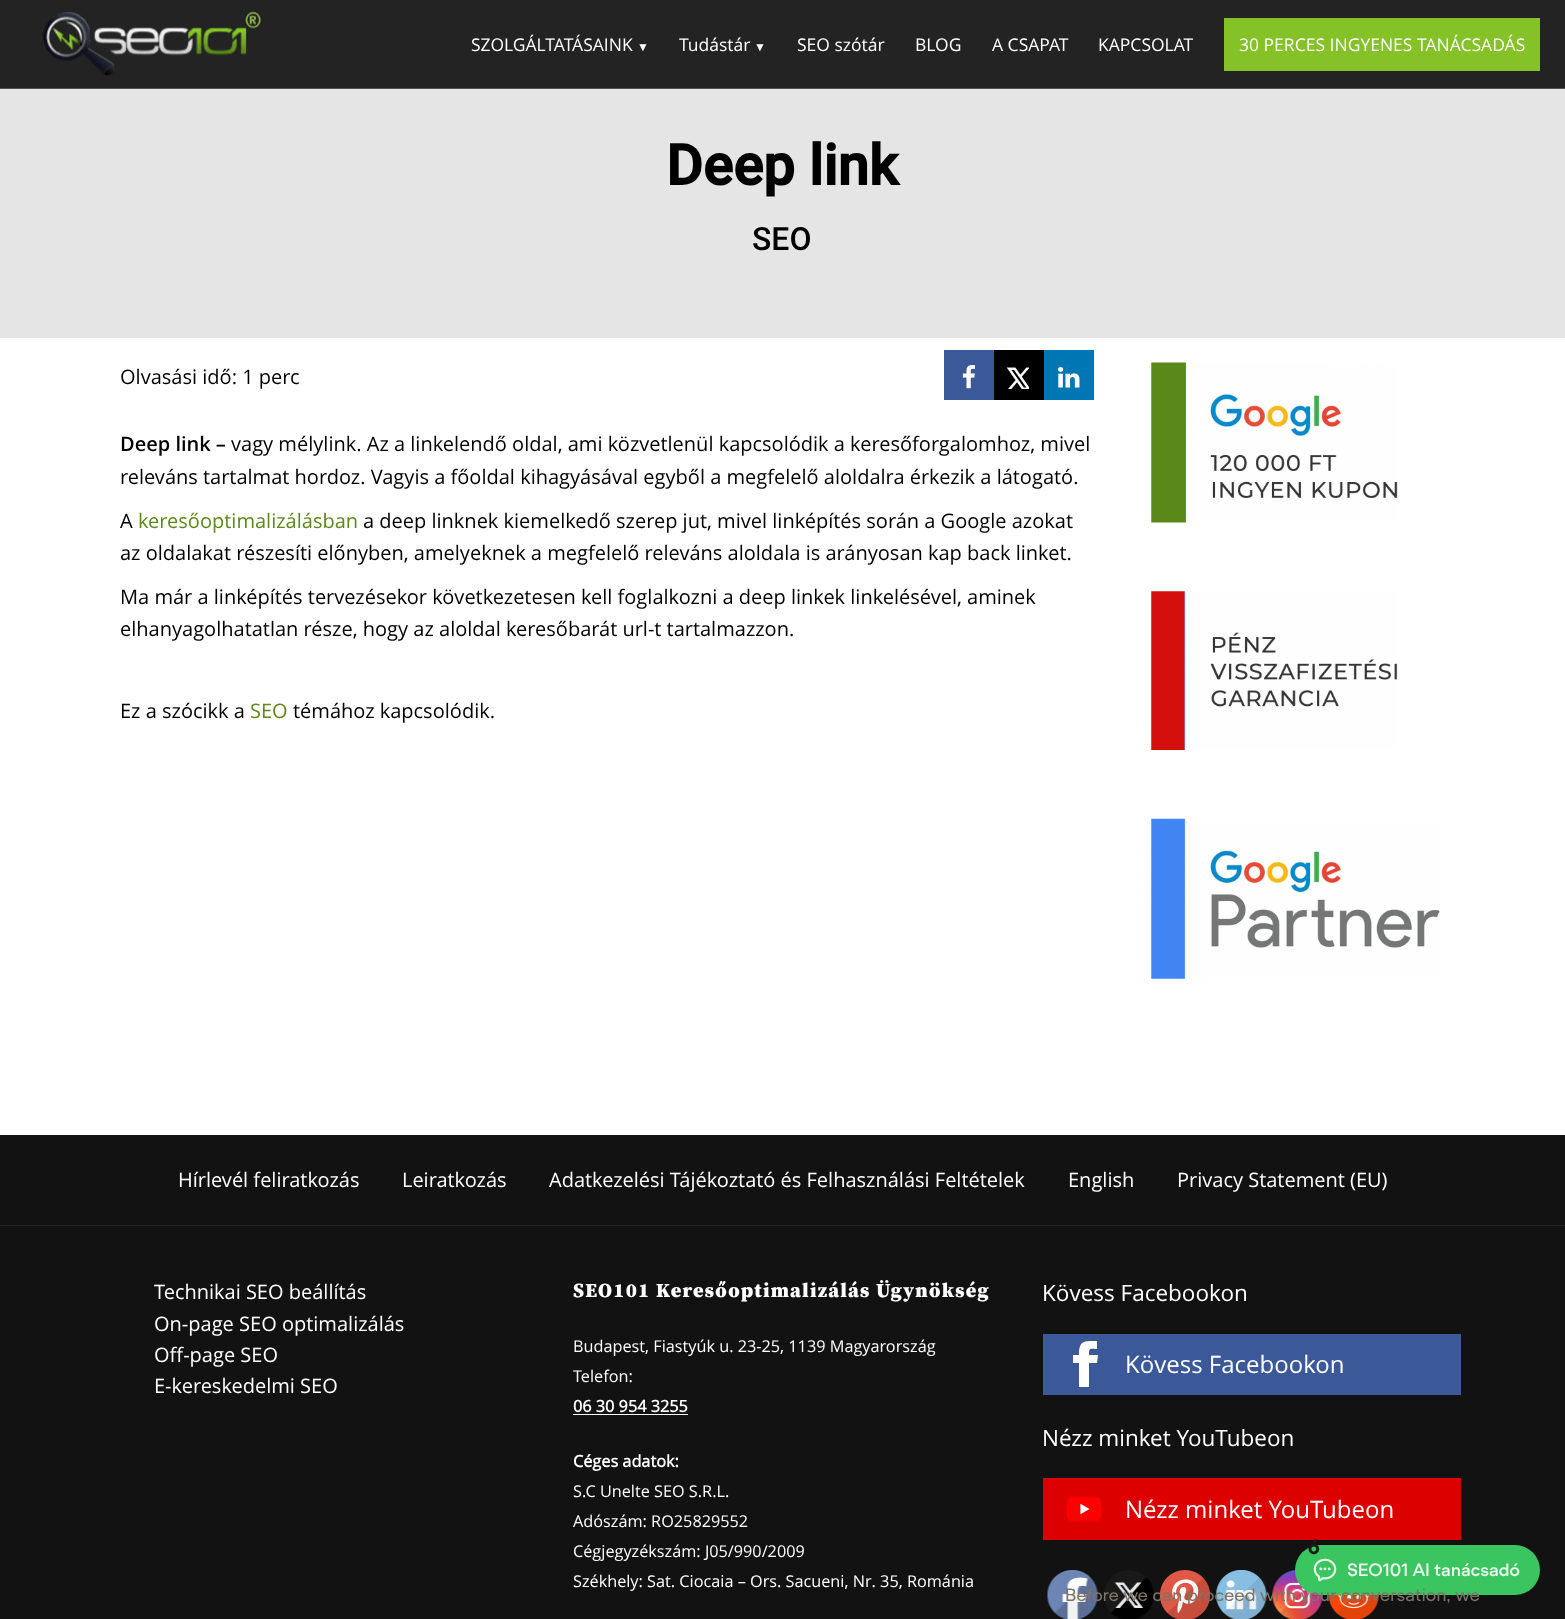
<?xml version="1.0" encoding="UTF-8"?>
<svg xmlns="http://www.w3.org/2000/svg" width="1565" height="1619">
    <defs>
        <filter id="blur1" x="-50%" y="-200%" width="200%" height="500%"><feGaussianBlur stdDeviation="5"/></filter>
    </defs>
    <rect width="100%" height="100%" fill="#FFFFFF"/>
    <rect x="0" y="0" width="1565" height="88" fill="#232323"/>
    <rect x="0" y="88" width="1565" height="1" fill="#525252"/>
    <image x="42" y="11" width="219" height="65" href="img_01.png"/>
    <text x="471" y="51" font-family="Open Sans" font-size="17.5" fill="#FFFFFF">SZOLGÁLTATÁSAINK</text>
    <text x="637" y="51" font-family="Liberation Serif" font-size="12" fill="#FFFFFF">▼</text>
    <text x="679" y="51" font-family="Open Sans" font-size="17.5" fill="#FFFFFF">Tudástár</text>
    <text x="754" y="51" font-family="Liberation Serif" font-size="12" fill="#FFFFFF">▼</text>
    <text x="797" y="51" font-family="Open Sans" font-size="17.5" fill="#FFFFFF">SEO szótár</text>
    <text x="915" y="51" font-family="Open Sans" font-size="17.5" fill="#FFFFFF">BLOG</text>
    <text x="992" y="51" font-family="Open Sans" font-size="17.5" fill="#FFFFFF">A CSAPAT</text>
    <text x="1098" y="51" font-family="Open Sans" font-size="17.5" fill="#FFFFFF">KAPCSOLAT</text>
    <rect x="1224" y="18" width="316" height="53" fill="#84C227"/>
    <text x="1239" y="51" font-family="Open Sans" font-size="17.5" fill="#FFFFFF">30 PERCES INGYENES TANÁCSADÁS</text>
    <rect x="0" y="89" width="1565" height="249" fill="#E5E5E5"/>
    <text x="666" y="185" font-family="Roboto" font-size="56.25" font-weight="700" fill="#000000">Deep link</text>
    <text x="752" y="250" font-family="Roboto" font-size="32" font-weight="500" fill="#000000">SEO</text>
    <text x="120" y="384" font-family="Open Sans" font-size="20" fill="#000000">Olvasási idő: 1 perc</text>
    <rect x="944" y="350" width="50" height="50" fill="#3B5998"/>
    <image x="962" y="365" width="13" height="24" href="img_02.png"/>
    <rect x="994" y="350" width="50" height="50" fill="#000000"/>
    <image x="1006" y="367" width="23" height="22" href="img_03.png"/>
    <rect x="1044" y="350" width="50" height="50" fill="#0077B5"/>
    <image x="1058" y="367" width="22" height="21" href="img_04.png"/>
    <text x="120" y="451" font-family="Open Sans" font-size="20" font-weight="600" fill="#000000">Deep link –</text>
    <text x="231" y="451" font-family="Open Sans" font-size="20" fill="#000000">vagy mélylink. Az a linkelendő oldal, ami közvetlenül kapcsolódik a keresőforgalomhoz, mivel</text>
    <text x="120" y="484" font-family="Open Sans" font-size="20" fill="#000000">releváns tartalmat hordoz. Vagyis a főoldal kihagyásával egyből a megfelelő aloldalra érkezik a látogató.</text>
    <text x="120" y="528" font-family="Open Sans" font-size="20" fill="#000000">A</text>
    <text x="138" y="528" font-family="Open Sans" font-size="20" fill="#5C8A1A">keresőoptimalizálásban</text>
    <text x="363" y="528" font-family="Open Sans" font-size="20" fill="#000000">a deep linknek kiemelkedő szerep jut, mivel linképítés során a Google azokat</text>
    <text x="120" y="560" font-family="Open Sans" font-size="20" fill="#000000">az oldalakat részesíti előnyben, amelyeknek a megfelelő releváns aloldala is arányosan kap back linket.</text>
    <text font-family="Open Sans" font-size="20" fill="#000000">
        <tspan x="120" y="604">Ma már a linképítés tervezésekor következetesen kell foglalkozni a deep linkek linkelésével, aminek</tspan>
        <tspan x="120" y="636">elhanyagolhatatlan része, hogy az aloldal keresőbarát url-t tartalmazzon.</tspan>
    </text>
    <text x="120" y="718" font-family="Open Sans" font-size="20" fill="#000000">Ez a szócikk a</text>
    <text x="250" y="718" font-family="Open Sans" font-size="20" fill="#5C8A1A">SEO</text>
    <text x="293" y="718" font-family="Open Sans" font-size="20" fill="#000000">témához kapcsolódik.</text>
    <image x="1151" y="362" width="247" height="161" href="img_05.png"/>
    <image x="1151" y="591" width="247" height="159" href="img_06.png"/>
    <image x="1151" y="818" width="289" height="161" href="img_07.png"/>
    <rect x="0" y="1135" width="1565" height="90" fill="#121212"/>
    <rect x="0" y="1225" width="1565" height="1" fill="#232323"/>
    <text x="178" y="1187" font-family="Open Sans" font-size="20" fill="#FFFFFF">Hírlevél feliratkozás</text>
    <text x="402" y="1187" font-family="Open Sans" font-size="20" fill="#FFFFFF">Leiratkozás</text>
    <text x="549" y="1187" font-family="Open Sans" font-size="20" fill="#FFFFFF">Adatkezelési Tájékoztató és Felhasználási Feltételek</text>
    <text x="1068" y="1187" font-family="Open Sans" font-size="20" fill="#FFFFFF">English</text>
    <text x="1177" y="1187" font-family="Open Sans" font-size="20" fill="#FFFFFF">Privacy Statement (EU)</text>
    <rect x="0" y="1226" width="1565" height="393" fill="#121212"/>
    <text font-family="Open Sans" font-size="20" fill="#FFFFFF">
        <tspan x="154" y="1299">Technikai SEO beállítás</tspan>
        <tspan x="154" y="1331">On-page SEO optimalizálás</tspan>
        <tspan x="154" y="1362">Off-page SEO</tspan>
        <tspan x="154" y="1393">E-kereskedelmi SEO</tspan>
    </text>
    <text x="573" y="1297" font-family="Source Serif Pro" font-size="20" font-weight="900" letter-spacing="1.25" fill="#FFFFFF">SEO101 Keresőoptimalizálás Ügynökség</text>
    <text font-family="Open Sans" font-size="16.25" fill="#FFFFFF">
        <tspan x="573" y="1352">Budapest, Fiastyúk u. 23-25, 1139 Magyarország</tspan>
        <tspan x="573" y="1382">Telefon:</tspan>
    </text>
    <text x="573" y="1412" font-family="Open Sans" font-size="16.25" font-weight="700" fill="#FFFFFF">06 30 954 3255</text>
    <rect x="573" y="1414" width="115" height="1" fill="#FFFFFF"/>
    <text x="573" y="1467" font-family="Open Sans" font-size="16.25" font-weight="700" fill="#FFFFFF">Céges adatok:</text>
    <text font-family="Open Sans" font-size="16.25" fill="#FFFFFF">
        <tspan x="573" y="1497">S.C Unelte SEO S.R.L.</tspan>
        <tspan x="573" y="1527">Adószám: RO25829552</tspan>
        <tspan x="573" y="1557">Cégjegyzékszám: J05/990/2009</tspan>
        <tspan x="573" y="1587">Székhely: Sat. Ciocaia – Ors. Sacueni, Nr. 35, Románia</tspan>
    </text>
    <text x="1042" y="1301" font-family="Open Sans" font-size="22.5" fill="#FFFFFF">Kövess Facebookon</text>
    <rect x="1043" y="1334" width="418" height="61" fill="#3B5998"/>
    <path d="M 1098 1355 H 1089 C 1089 1347 1090 1349 1097 1349 V 1341 C 1084 1341 1079 1340 1079 1355 H 1073 V 1363 H 1079 V 1387 H 1089 V 1363 H 1097 Z" fill="#FFFFFF"/>
    <text x="1125" y="1373" font-family="Open Sans" font-size="24" fill="#FFFFFF">Kövess Facebookon</text>
    <text x="1042" y="1446" font-family="Open Sans" font-size="22.5" fill="#FFFFFF">Nézz minket YouTubeon</text>
    <rect x="1043" y="1478" width="418" height="62" fill="#DD0000"/>
    <image x="1066" y="1496" width="36" height="26" href="img_08.png"/>
    <text x="1125" y="1518" font-family="Open Sans" font-size="24" fill="#FFFFFF">Nézz minket YouTubeon</text>
    <image x="1047" y="1570" width="51" height="49" href="img_09.png"/>
    <image x="1104" y="1570" width="50" height="49" href="img_10.png"/>
    <image x="1160" y="1570" width="50" height="49" href="img_11.png"/>
    <image x="1216" y="1570" width="51" height="49" href="img_12.png"/>
    <image x="1272" y="1570" width="51" height="49" href="img_13.png"/>
    <image x="1328" y="1595" width="51" height="24" href="img_14.png"/>
    <rect x="1303" y="1558" width="230" height="35" rx="17.5" fill="#161A1E" fill-opacity="0.08" filter="url(#blur1)"/>
    <rect x="1294.5" y="1544.5" width="246" height="51" fill="none" stroke="#161A1E" stroke-opacity="0.04"/>
    <rect x="1295" y="1545" width="245" height="50" rx="25" fill="#3AC560"/>
    <text x="1308" y="1554" font-family="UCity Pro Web" font-size="20" font-weight="700" fill="#1B1B16">ó</text>
    <text x="1065" y="1601" font-family="UCity Pro Web" font-size="17.5" fill="#7D7467">Before we can proceed with your conversation, we</text>
    <image x="1313" y="1558" width="24" height="24" href="img_15.png"/>
    <text x="1347" y="1576" font-family="UCity Pro Web" font-size="17.5" font-weight="600" fill="#EBF9EF">SEO101 AI tanácsadó</text>
</svg>
